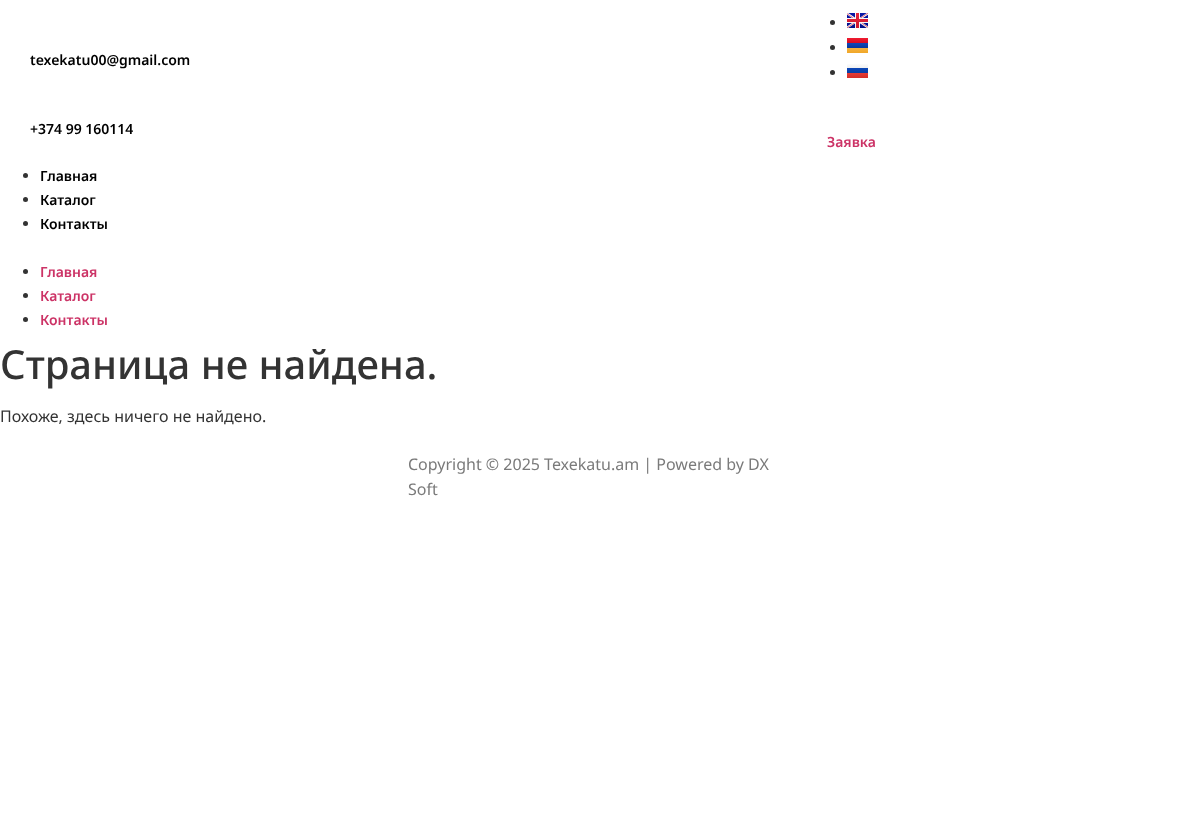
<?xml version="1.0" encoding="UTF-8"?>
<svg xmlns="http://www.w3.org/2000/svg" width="1195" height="840">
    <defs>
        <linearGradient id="g1" gradientUnits="userSpaceOnUse" x1="858" y1="38" x2="858" y2="43"><stop offset="0" stop-color="#F01C31"/><stop offset="1" stop-color="#D70A1F"/></linearGradient>
        <linearGradient id="g2" gradientUnits="userSpaceOnUse" x1="858" y1="43" x2="858" y2="48"><stop offset="0" stop-color="#1047B9"/><stop offset="1" stop-color="#06379D"/></linearGradient>
        <linearGradient id="g3" gradientUnits="userSpaceOnUse" x1="858" y1="48" x2="858" y2="53"><stop offset="0" stop-color="#F5B23E"/><stop offset="1" stop-color="#F0A728"/></linearGradient>
        <linearGradient id="g4" gradientUnits="userSpaceOnUse" x1="858" y1="63" x2="858" y2="68"><stop offset="0" stop-color="#FFFFFF"/><stop offset="1" stop-color="#F0F0F0"/></linearGradient>
        <linearGradient id="g5" gradientUnits="userSpaceOnUse" x1="858" y1="68" x2="858" y2="73"><stop offset="0" stop-color="#0C47B7"/><stop offset="1" stop-color="#073DA4"/></linearGradient>
        <linearGradient id="g6" gradientUnits="userSpaceOnUse" x1="858" y1="73" x2="858" y2="78"><stop offset="0" stop-color="#E53B35"/><stop offset="1" stop-color="#D32E28"/></linearGradient>
    </defs>
    <rect width="100%" height="100%" fill="#FFFFFF"/>
    <text x="30" y="65" font-family="Noto Sans" font-size="14" font-weight="600" fill="#000000">texekatu00@gmail.com</text>
    <text x="30" y="134" font-family="Noto Sans" font-size="14" font-weight="600" fill="#000000">+374 99 160114</text>
    <circle cx="832.5" cy="22.5" r="2.5" fill="#333333"/>
    <image x="847" y="13" width="21" height="15" href="img_01.png"/>
    <rect x="847" y="38" width="21" height="5" fill="url(#g1)"/>
    <circle cx="832.5" cy="47.5" r="2.5" fill="#333333"/>
    <rect x="847" y="43" width="21" height="5" fill="url(#g2)"/>
    <rect x="847" y="48" width="21" height="5" fill="url(#g3)"/>
    <rect x="847" y="64" width="21" height="4" fill="url(#g4)"/>
    <circle cx="832.5" cy="72.5" r="2.5" fill="#333333"/>
    <rect x="847" y="68" width="21" height="5" fill="url(#g5)"/>
    <rect x="847" y="73" width="21" height="5" fill="url(#g6)"/>
    <text x="827" y="147" font-family="Noto Sans" font-size="14" font-weight="600" fill="#CC3366">Заявка</text>
    <circle cx="25.5" cy="175.5" r="2.5" fill="#333333"/>
    <text x="40" y="181" font-family="Noto Sans" font-size="14" font-weight="600" fill="#000000">Главная</text>
    <circle cx="25.5" cy="199.5" r="2.5" fill="#333333"/>
    <text x="40" y="205" font-family="Noto Sans" font-size="14" font-weight="600" fill="#000000">Каталог</text>
    <circle cx="25.5" cy="223.5" r="2.5" fill="#333333"/>
    <text x="40" y="229" font-family="Noto Sans" font-size="14" font-weight="600" fill="#000000">Контакты</text>
    <circle cx="25.5" cy="271.5" r="2.5" fill="#333333"/>
    <text x="40" y="277" font-family="Noto Sans" font-size="14" font-weight="600" fill="#CC3366">Главная</text>
    <circle cx="25.5" cy="295.5" r="2.5" fill="#333333"/>
    <text x="40" y="301" font-family="Noto Sans" font-size="14" font-weight="600" fill="#CC3366">Каталог</text>
    <circle cx="25.5" cy="319.5" r="2.5" fill="#333333"/>
    <text x="40" y="325" font-family="Noto Sans" font-size="14" font-weight="600" fill="#CC3366">Контакты</text>
    <text x="0" y="379" font-family="Noto Sans" font-size="40" font-weight="500" fill="#333333">Страница не найдена.</text>
    <text x="0" y="422" font-family="Noto Sans" font-size="16" fill="#333333">Похоже, здесь ничего не найдено.</text>
    <text font-family="Noto Sans" font-size="16" fill="#7A7A7A">
        <tspan x="408" y="470">Copyright © 2025 Texekatu.am | Powered by DX</tspan>
        <tspan x="408" y="495">Soft</tspan>
    </text>
</svg>
